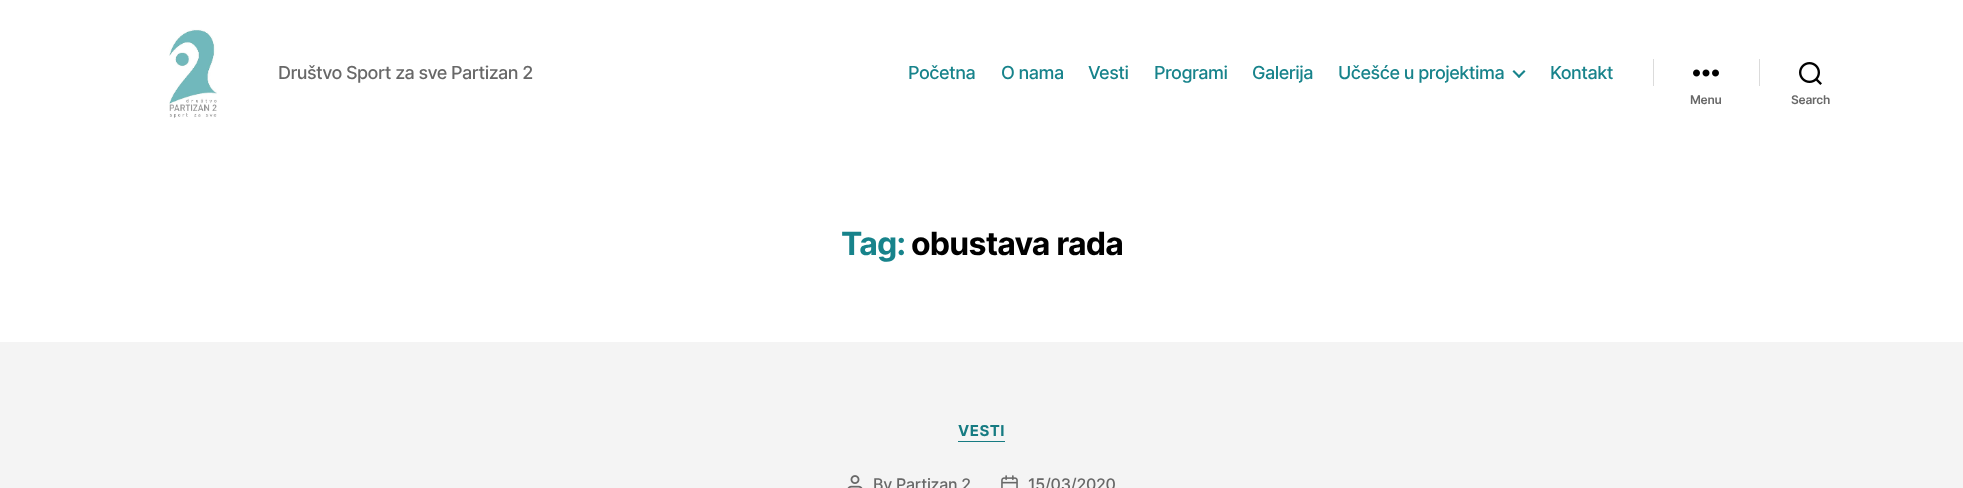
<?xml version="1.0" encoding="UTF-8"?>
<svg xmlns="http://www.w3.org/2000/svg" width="1963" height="488">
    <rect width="100%" height="100%" fill="#F4F4F4"/>
    <rect x="0" y="0" width="1963" height="342" fill="#FFFFFF"/>
    <image x="169" y="29" width="48" height="89" href="img_01.png"/>
    <text x="278" y="79" font-family="Inter" font-size="18" font-weight="500" letter-spacing="-0.55" fill="#686868">Društvo Sport za sve Partizan 2</text>
    <text x="908" y="79" font-family="Inter" font-size="18" font-weight="500" letter-spacing="-0.5" fill="#17838B">Početna</text>
    <text x="1001" y="79" font-family="Inter" font-size="18" font-weight="500" letter-spacing="-0.5" fill="#17838B">O nama</text>
    <text x="1088" y="79" font-family="Inter" font-size="18" font-weight="500" letter-spacing="-0.5" fill="#17838B">Vesti</text>
    <text x="1154" y="79" font-family="Inter" font-size="18" font-weight="500" letter-spacing="-0.5" fill="#17838B">Programi</text>
    <text x="1252" y="79" font-family="Inter" font-size="18" font-weight="500" letter-spacing="-0.5" fill="#17838B">Galerija</text>
    <text x="1338" y="79" font-family="Inter" font-size="18" font-weight="500" letter-spacing="-0.5" fill="#17838B">Učešće u projektima</text>
    <path d="M 1512.5 71.5 L 1514 70 L 1520.5 76.5 L 1519 78 Z" fill="#17838B"/>
    <path d="M 1517.5 76.5 L 1524 70 L 1525.5 71.5 L 1519 78 Z" fill="#17838B"/>
    <text x="1550" y="79" font-family="Inter" font-size="18" font-weight="500" letter-spacing="-0.5" fill="#17838B">Kontakt</text>
    <rect x="1653" y="59" width="1" height="27" fill="#DBDBDB"/>
    <image x="1693" y="69" width="26" height="8" href="img_02.png"/>
    <text x="1690" y="104" font-family="Inter" font-size="12" font-weight="600" letter-spacing="-0.25" fill="#686868">Menu</text>
    <rect x="1759" y="59" width="1" height="27" fill="#DBDBDB"/>
    <image x="1799" y="62" width="23" height="23" href="img_03.png"/>
    <text x="1791" y="104" font-family="Inter" font-size="12" font-weight="600" letter-spacing="-0.25" fill="#686868">Search</text>
    <text x="841" y="255" font-family="Inter" font-size="32" font-weight="700" letter-spacing="-0.8" fill="#17838B">Tag:</text>
    <text x="911" y="255" font-family="Inter" font-size="32" font-weight="700" letter-spacing="-0.8" fill="#000000">obustava rada</text>
    <rect x="958" y="441" width="47" height="1" fill="#167B82"/>
    <text x="958" y="436" font-family="Inter" font-size="15" font-weight="700" letter-spacing="0.5" fill="#167B82">VESTI</text>
    <image x="847" y="475" width="16" height="13" href="img_04.png"/>
    <text x="873" y="490" font-family="Inter" font-size="16" font-weight="500" letter-spacing="-0.25" fill="#686868">By Partizan 2</text>
    <image x="1001" y="475" width="17" height="13" href="img_05.png"/>
    <text x="1028" y="490" font-family="Inter" font-size="16" font-weight="500" letter-spacing="-0.25" fill="#686868">15/03/2020</text>
</svg>
